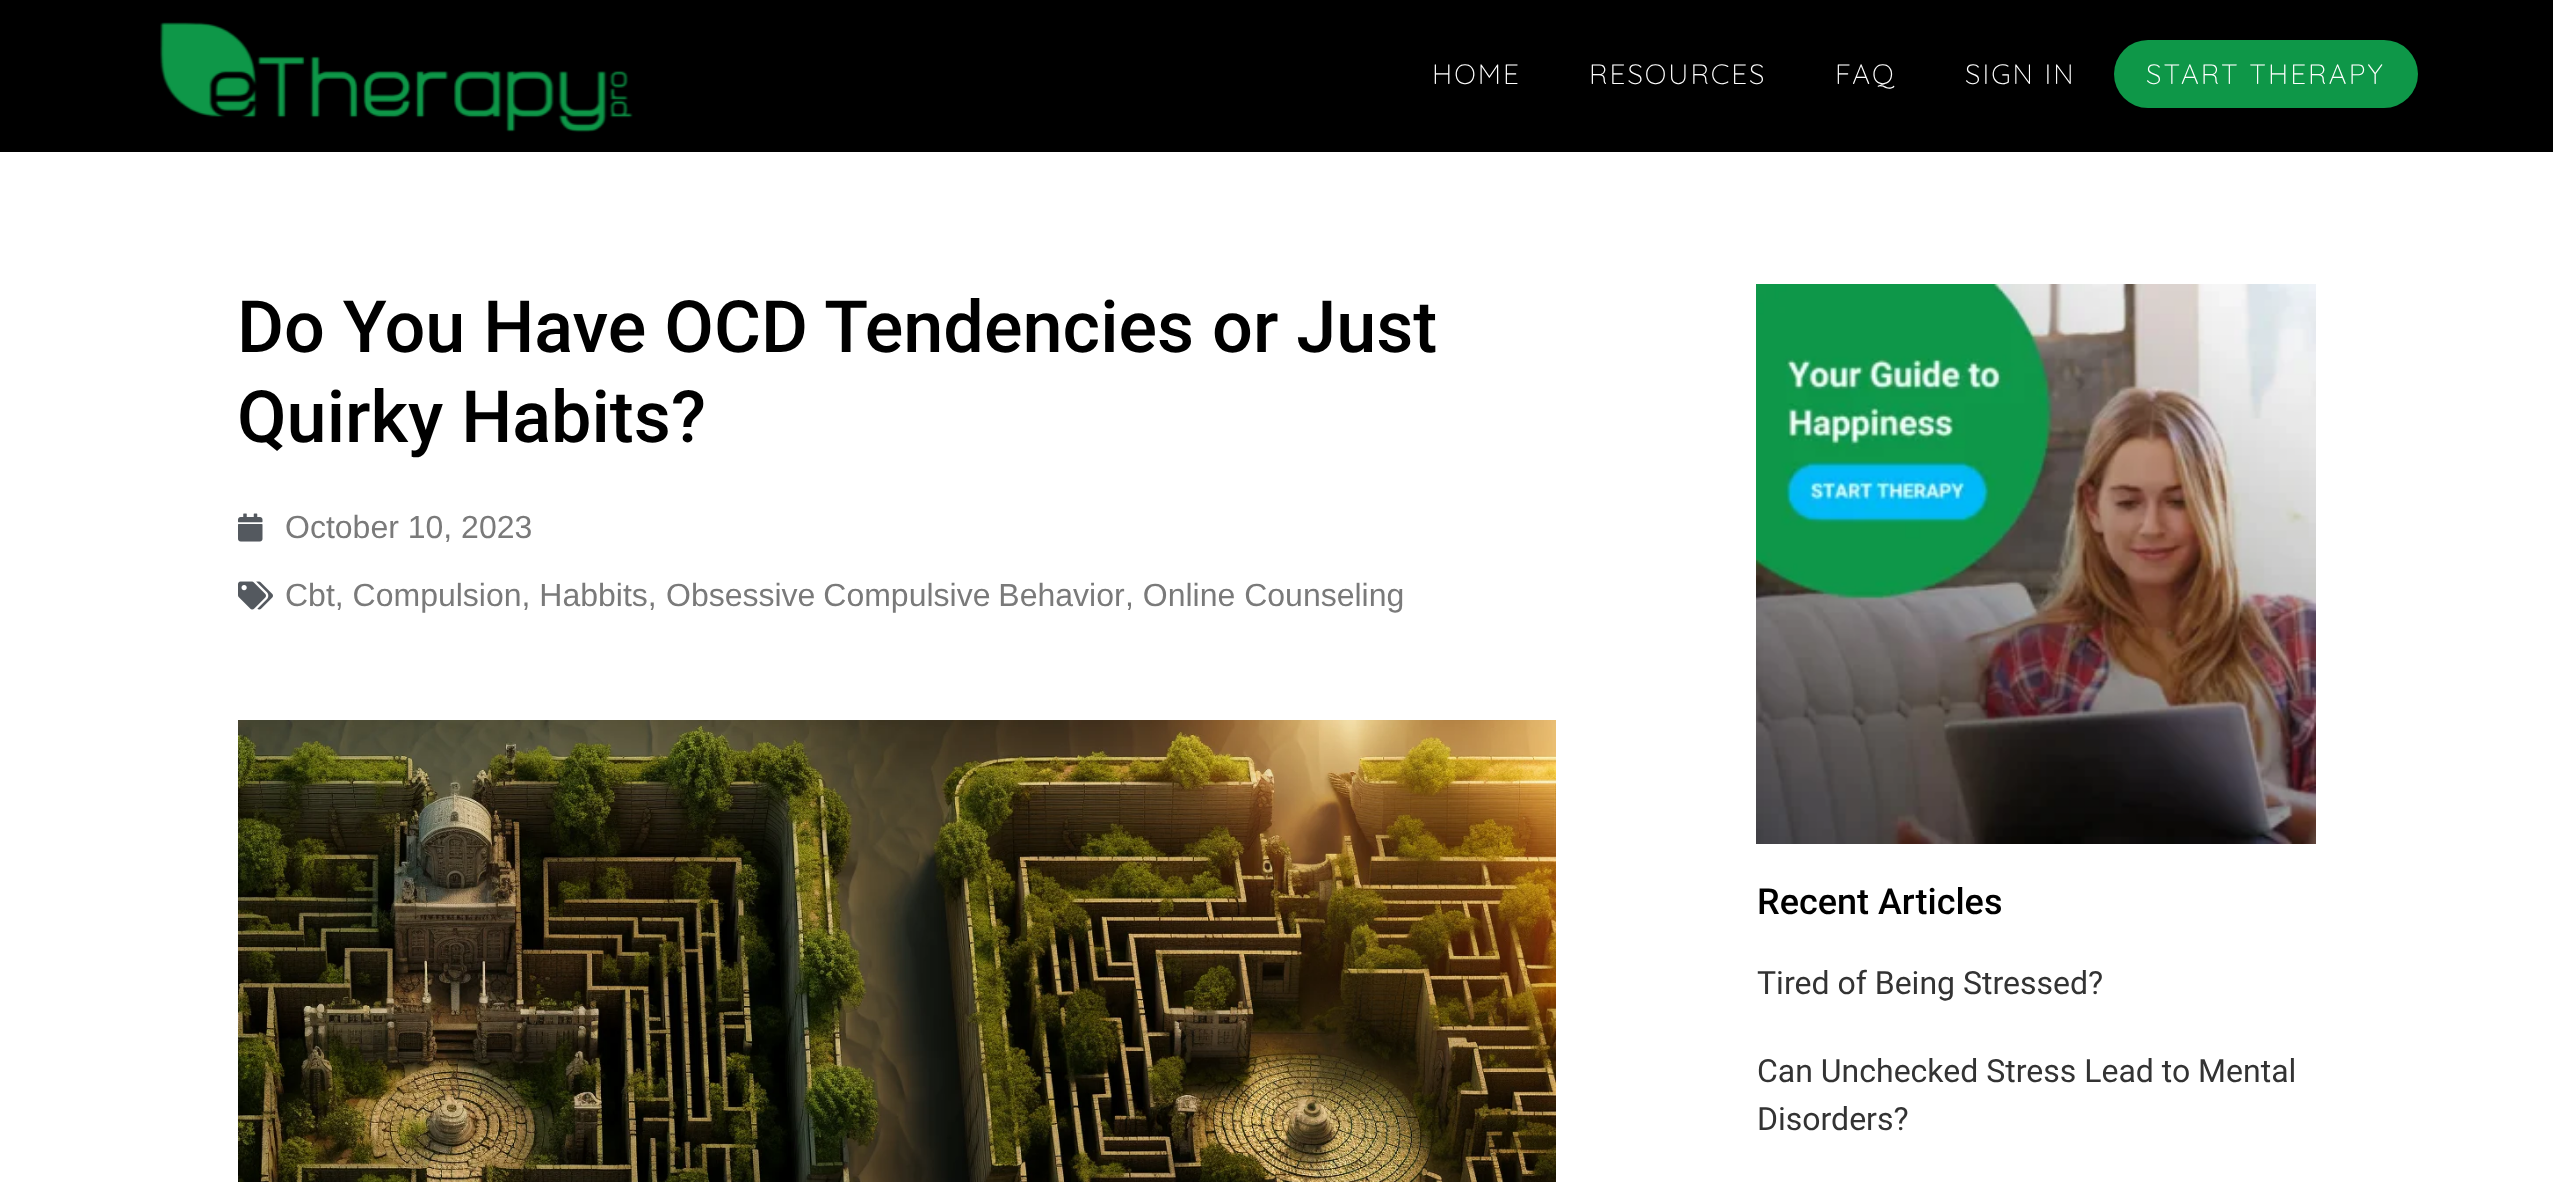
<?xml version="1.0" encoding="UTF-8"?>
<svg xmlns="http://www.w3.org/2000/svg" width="2553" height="1182">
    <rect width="100%" height="100%" fill="#FFFFFF"/>
    <rect x="0" y="0" width="2553" height="152" fill="#000000"/>
    <image x="160" y="22" width="473" height="111" href="img_01.png"/>
    <text x="1432" y="84" font-family="Quicksand" font-size="28" font-weight="300" letter-spacing="2" fill="#FFFFFF">HOME</text>
    <text x="1589" y="84" font-family="Quicksand" font-size="28" font-weight="300" letter-spacing="2" fill="#FFFFFF">RESOURCES</text>
    <text x="1835" y="84" font-family="Quicksand" font-size="28" font-weight="300" letter-spacing="2" fill="#FFFFFF">FAQ</text>
    <text x="1965" y="84" font-family="Quicksand" font-size="28" font-weight="300" letter-spacing="2" fill="#FFFFFF">SIGN IN</text>
    <rect x="2114" y="40" width="304" height="68" rx="34" fill="#0E9748"/>
    <text x="2146" y="84" font-family="Quicksand" font-size="28" font-weight="300" letter-spacing="2" fill="#FFFFFF">START THERAPY</text>
    <text font-family="Roboto" font-size="72" font-weight="500" fill="#000000">
        <tspan x="237" y="352">Do You Have OCD Tendencies or Just</tspan>
        <tspan x="237" y="442">Quirky Habits?</tspan>
    </text>
    <image x="238" y="513" width="25" height="29" href="img_02.png"/>
    <text x="285" y="538" font-family="Liberation Sans" font-size="32" fill="#7A7A7A">October 10, 2023</text>
    <image x="238" y="581" width="35" height="29" href="img_03.png"/>
    <text x="285" y="606" font-family="Liberation Sans" font-size="32" fill="#7A7A7A">Cbt, Compulsion, Habbits,</text>
    <text x="666" y="606" word-spacing="-1" font-family="Liberation Sans" font-size="32" fill="#7A7A7A">Obsessive Compulsive Behavior</text>
    <text x="1125" y="606" font-family="Liberation Sans" font-size="32" fill="#7A7A7A">, Online Counseling</text>
    <image x="238" y="720" width="1318" height="462" href="img_04.png"/>
    <image x="1756" y="284" width="560" height="560" href="img_05.png"/>
    <text x="1757" y="914" font-family="Roboto" font-size="36" font-weight="500" fill="#000000">Recent Articles</text>
    <text x="1757" y="994" font-family="Roboto" font-size="32" fill="#333333">Tired of Being Stressed?</text>
    <text font-family="Roboto" font-size="32" fill="#333333">
        <tspan x="1757" y="1082">Can Unchecked Stress Lead to Mental</tspan>
        <tspan x="1757" y="1130">Disorders?</tspan>
    </text>
</svg>
